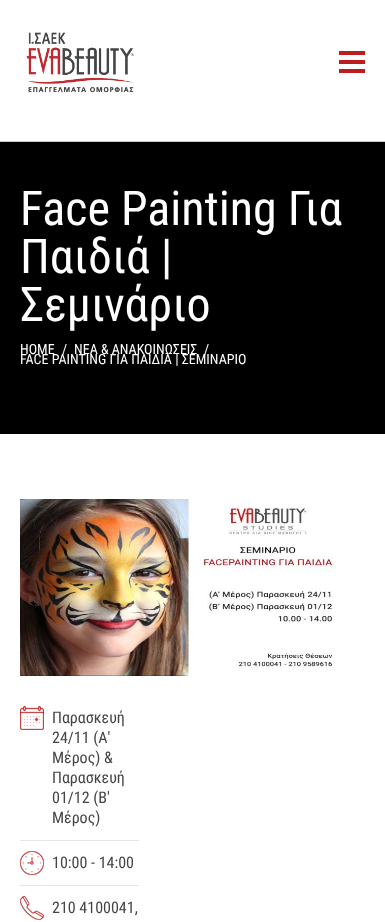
<?xml version="1.0" encoding="UTF-8"?>
<svg xmlns="http://www.w3.org/2000/svg" width="385" height="922">
    <rect width="100%" height="100%" fill="#FFFFFF"/>
    <image x="26" y="32" width="108" height="61" href="img_01.png"/>
    <rect x="339" y="51" width="26" height="4" fill="#BD1D1D"/>
    <rect x="339" y="60" width="26" height="4" fill="#BD1D1D"/>
    <rect x="339" y="69" width="26" height="4" fill="#BD1D1D"/>
    <rect x="0" y="141" width="385" height="1" fill="#CCCCCC"/>
    <rect x="0" y="142" width="385" height="292" fill="#000000"/>
    <text font-family="Roboto Condensed" font-size="48" fill="#FFFFFF">
        <tspan x="20" y="225">Face Painting Για</tspan>
        <tspan x="20" y="273">Παιδιά |</tspan>
        <tspan x="20" y="321">Σεμινάριο</tspan>
    </text>
    <text x="20" y="354" font-family="Roboto Condensed" font-size="14" fill="#FFFFFF">HOME</text>
    <text x="62" y="354" font-family="Roboto Condensed" font-size="14" fill="#FFFFFF">/</text>
    <text x="74" y="354" font-family="Roboto Condensed" font-size="14" fill="#FFFFFF">ΝΕΑ &amp; ΑΝΑΚΟΙΝΩΣΕΙΣ</text>
    <text x="204" y="354" font-family="Roboto Condensed" font-size="14" fill="#FFFFFF">/</text>
    <text x="20" y="364" font-family="Roboto Condensed" font-size="14" fill="#FFFFFF">FACE PAINTING ΓΙΑ ΠΑΙΔΙΑ | ΣΕΜΙΝΑΡΙΟ</text>
    <image x="20" y="499" width="317" height="177" href="img_02.png"/>
    <rect x="20" y="840" width="119" height="1" fill="#E5E5E5"/>
    <image x="20" y="706" width="24" height="24" href="img_03.png"/>
    <text font-family="Roboto Condensed" font-size="16" fill="#444444">
        <tspan x="52" y="723">Παρασκευή</tspan>
        <tspan x="52" y="743">24/11 (Α'</tspan>
        <tspan x="52" y="763">Μέρος) &amp;</tspan>
        <tspan x="52" y="783">Παρασκευή</tspan>
        <tspan x="52" y="803">01/12 (Β'</tspan>
        <tspan x="52" y="823">Μέρος)</tspan>
    </text>
    <rect x="20" y="885" width="119" height="1" fill="#E5E5E5"/>
    <image x="20" y="851" width="24" height="24" href="img_04.png"/>
    <text x="52" y="868" font-family="Roboto Condensed" font-size="16" fill="#444444">10:00 - 14:00</text>
    <image x="20" y="896" width="24" height="24" href="img_05.png"/>
    <text x="52" y="913" font-family="Roboto Condensed" font-size="16" fill="#444444">210 4100041,</text>
</svg>
